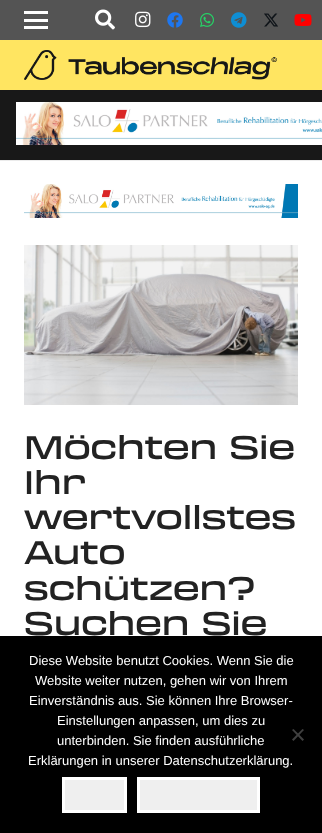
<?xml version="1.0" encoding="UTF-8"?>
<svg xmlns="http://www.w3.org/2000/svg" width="322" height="833">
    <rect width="100%" height="100%" fill="#FFFFFF"/>
    <rect x="0" y="0" width="322" height="40" fill="#545454"/>
    <rect x="24" y="19" width="24" height="3" fill="#FFFFFF"/>
    <rect x="24" y="11" width="24" height="3" fill="#FFFFFF"/>
    <rect x="24" y="26" width="24" height="3" fill="#FFFFFF"/>
    <image x="95" y="9" width="20" height="21" href="img_01.png"/>
    <image x="135" y="11" width="16" height="17" href="img_02.png"/>
    <image x="167" y="12" width="16" height="16" href="img_03.png"/>
    <image x="200" y="13" width="14" height="14" href="img_04.png"/>
    <image x="231" y="12" width="16" height="16" href="img_05.png"/>
    <image x="264" y="13" width="14" height="14" href="img_06.png"/>
    <image x="294" y="14" width="18" height="12" href="img_07.png"/>
    <rect x="0" y="40" width="322" height="50" fill="#FFE561"/>
    <image x="24" y="50" width="253" height="30" href="img_08.png"/>
    <rect x="0" y="160" width="322" height="1" fill="#EBEBEB"/>
    <rect x="0" y="90" width="322" height="70" fill="#181818"/>
    <image x="16" y="102" width="306" height="43" href="img_09.png"/>
    <image x="24" y="184" width="274" height="34" href="img_10.png"/>
    <image x="24" y="245" width="274" height="160" href="img_11.png"/>
    <text font-family="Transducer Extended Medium" font-size="32" font-weight="500" fill="#222222">
        <tspan x="24" y="459">Möchten Sie</tspan>
        <tspan x="24" y="494">Ihr</tspan>
        <tspan x="24" y="529">wertvollstes</tspan>
        <tspan x="24" y="564">Auto</tspan>
        <tspan x="24" y="600">schützen?</tspan>
        <tspan x="24" y="635">Suchen Sie</tspan>
    </text>
    <rect x="0" y="636" width="322" height="197" fill="#000000"/>
    <text x="29" y="665" font-family="Liberation Sans" font-size="13" fill="#FFFFFF">Diese Website benutzt Cookies. Wenn Sie die</text>
    <text x="35" y="685" font-family="Liberation Sans" font-size="13" fill="#FFFFFF">Website weiter nutzen, gehen wir von Ihrem</text>
    <text x="29" y="705" font-family="Liberation Sans" font-size="13" fill="#FFFFFF">Einverständnis aus. Sie können Ihre Browser-</text>
    <text font-family="Liberation Sans" font-size="13" fill="#FFFFFF">
        <tspan x="57" y="725">Einstellungen anpassen, um dies zu</tspan>
        <tspan x="57" y="745">unterbinden. Sie finden ausführliche</tspan>
    </text>
    <text x="28" y="765" font-family="Liberation Sans" font-size="13" fill="#FFFFFF">Erklärungen in unserer Datenschutzerklärung.</text>
    <path d="M 302.5 729 L 304 730 L 293.5 741 L 292 739.5 Z" fill="#404040"/>
    <path d="M 292 730 L 293.5 729 L 304 739.5 L 302.5 741 Z" fill="#404040"/>
    <rect x="63.5" y="778.5" width="62" height="33" fill="#EFEFEF" stroke="#FFFFFF" stroke-width="3"/>
    <rect x="138.5" y="778.5" width="120" height="33" fill="#EFEFEF" stroke="#FFFFFF" stroke-width="3"/>
</svg>
